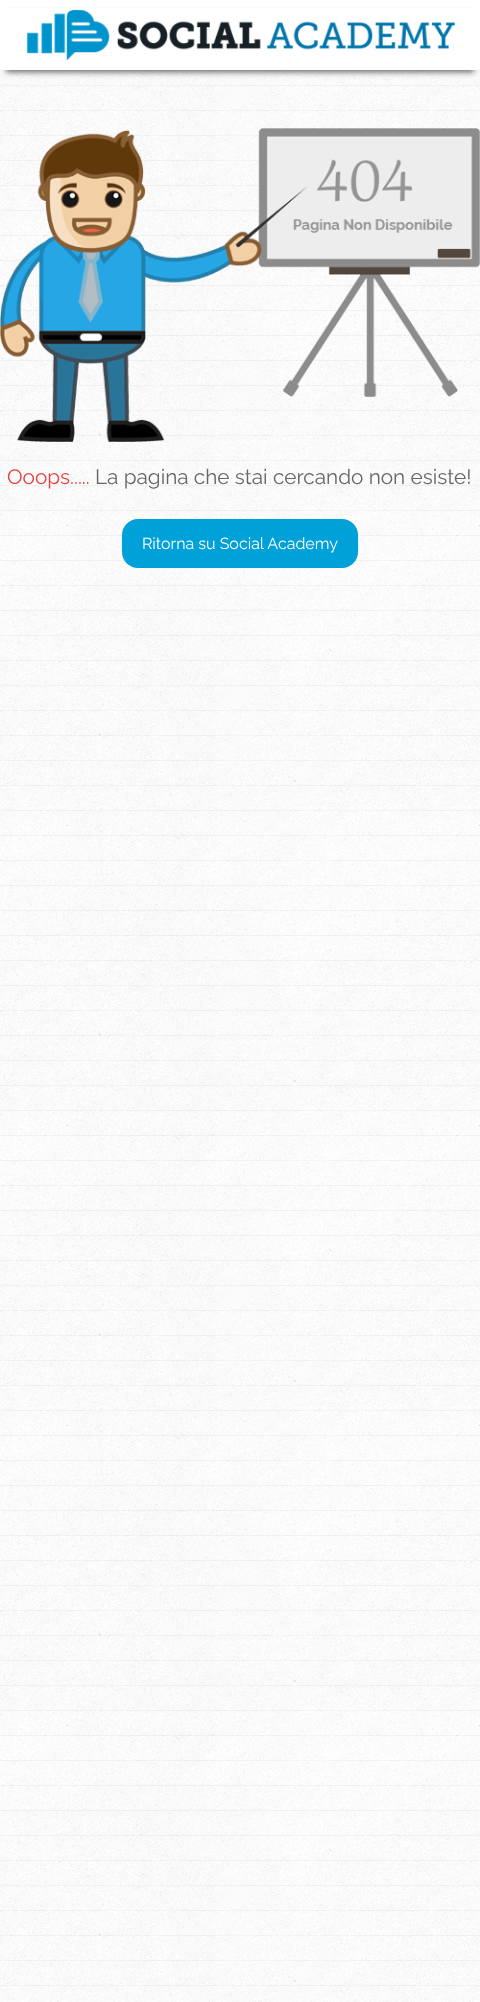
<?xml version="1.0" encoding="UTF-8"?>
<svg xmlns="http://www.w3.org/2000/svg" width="480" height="2002">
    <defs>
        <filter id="blur1" x="-50%" y="-200%" width="200%" height="500%"><feGaussianBlur stdDeviation="3"/></filter>
    </defs>
    <rect width="100%" height="100%" fill="#FFFFFF"/>
    <image x="0" y="70" width="480" height="1932" href="img_01.png"/>
    <rect x="6" y="14" width="468" height="58" fill="#616161" filter="url(#blur1)"/>
    <rect x="0" y="8" width="480" height="62" fill="#FFFFFF"/>
    <image x="26" y="10" width="430" height="50" href="img_02.png"/>
    <image x="0" y="128" width="480" height="314" href="img_03.png"/>
    <text x="7" y="484" font-family="Raleway" font-size="20.75" fill="#E54040">Ooops.....</text>
    <text x="95" y="484" font-family="Raleway" font-size="20.75" fill="#666666">La pagina che stai cercando non esiste!</text>
    <rect x="122" y="519" width="236" height="49" rx="16" fill="#00A0D8"/>
    <text x="142" y="549" font-family="Raleway" font-size="16" fill="#FFFFFF">Ritorna su Social Academy</text>
</svg>
